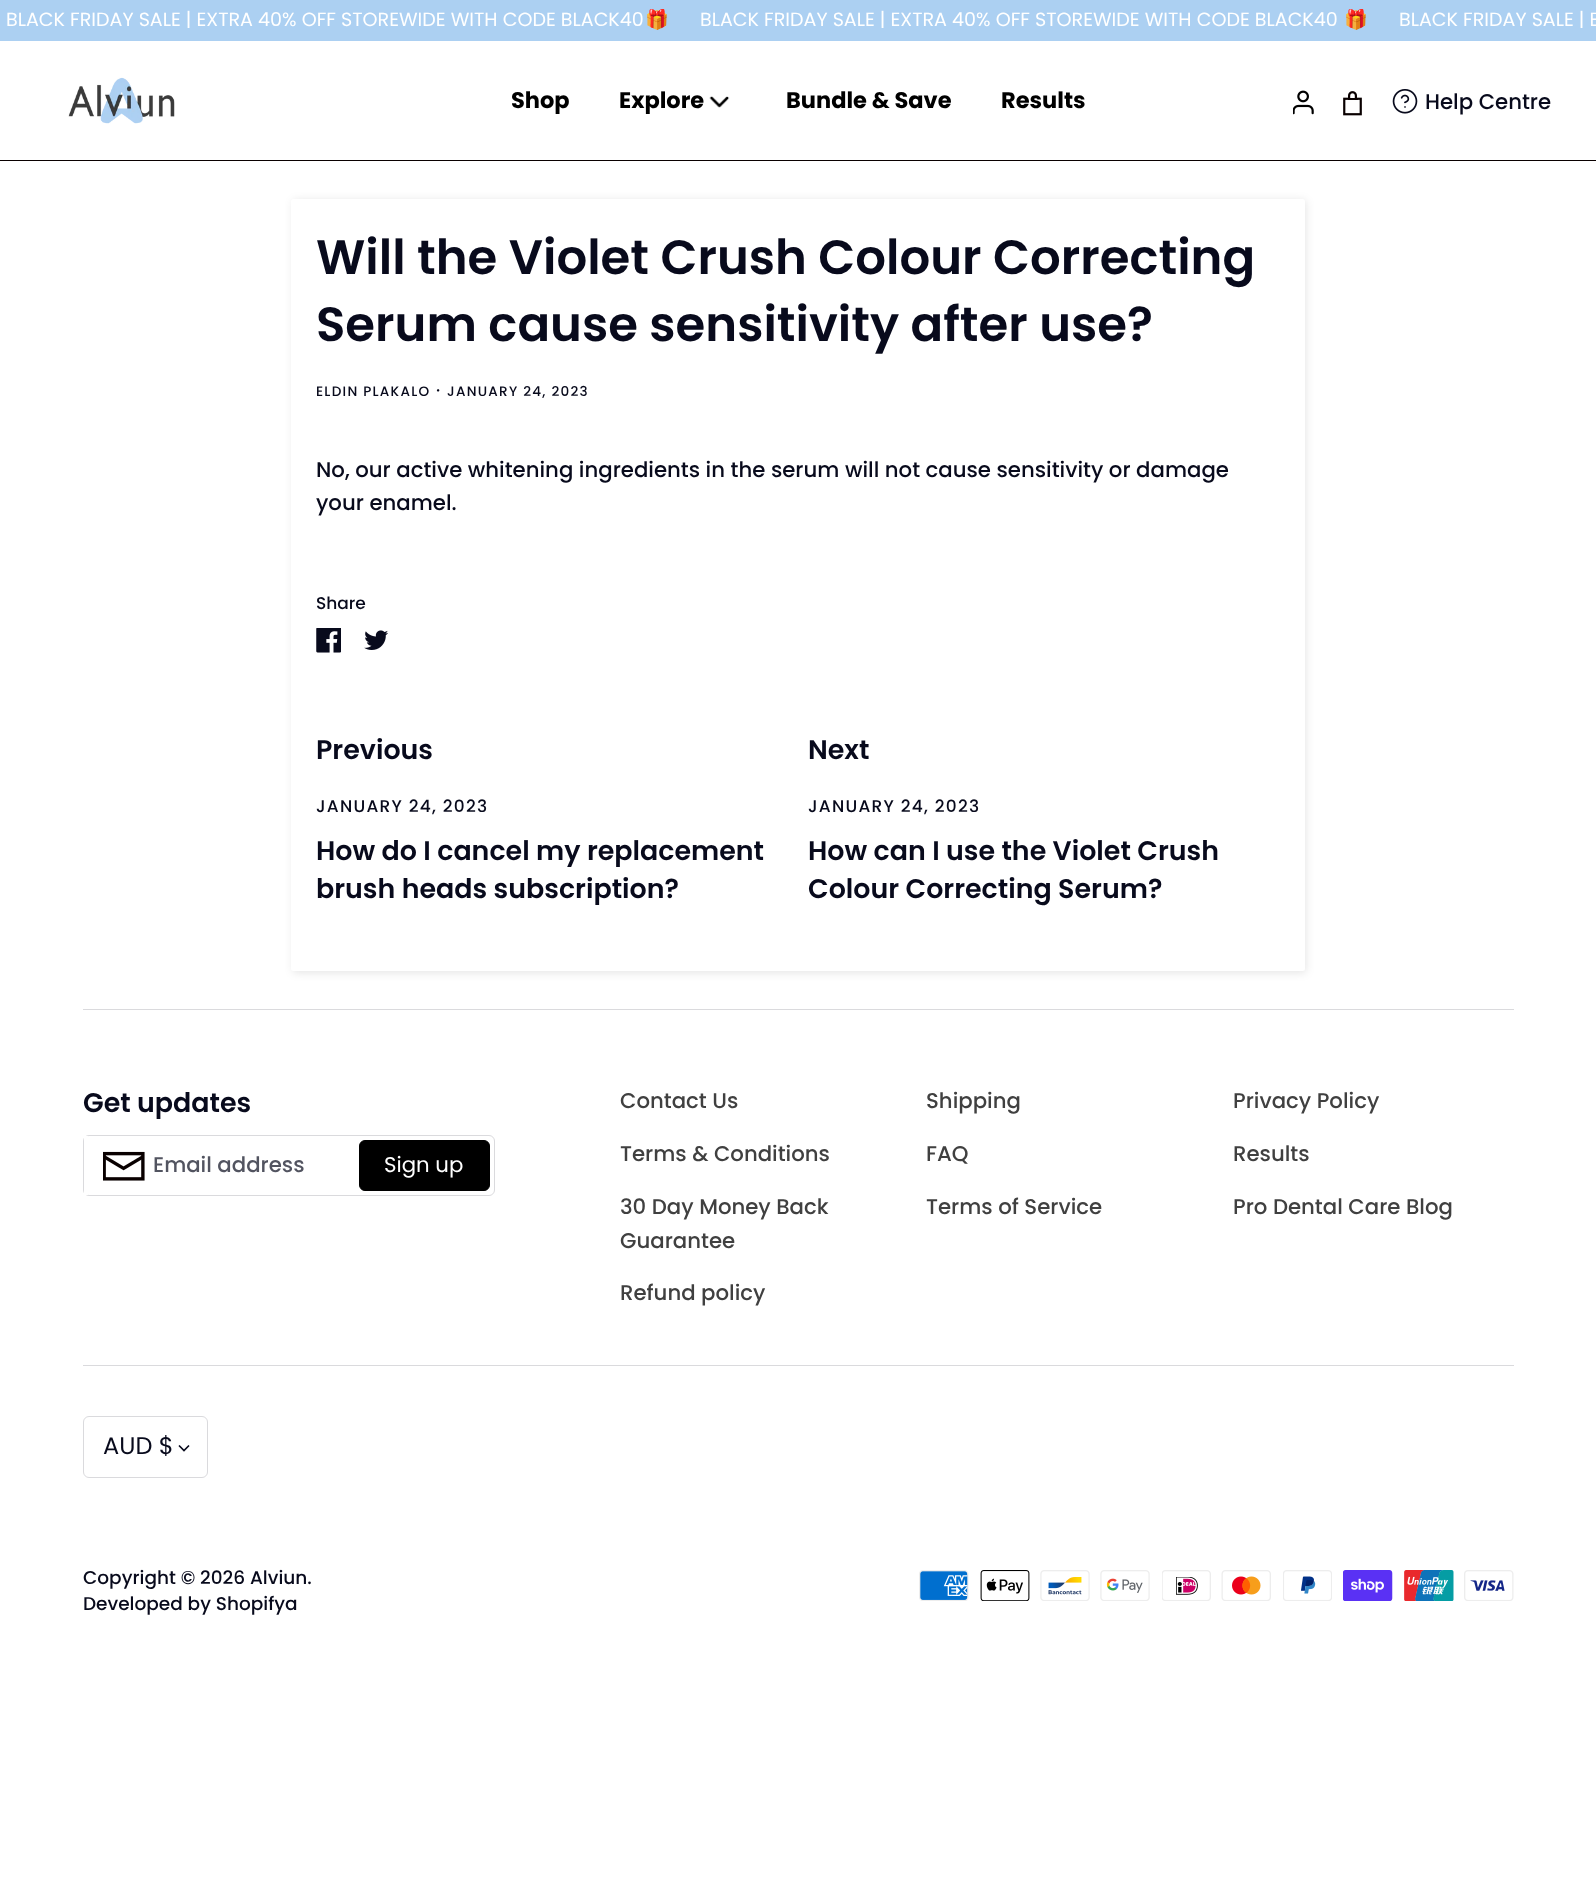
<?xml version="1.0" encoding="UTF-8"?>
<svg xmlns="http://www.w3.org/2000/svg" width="1596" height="1883">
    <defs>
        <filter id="blur1" x="-50%" y="-200%" width="200%" height="500%"><feGaussianBlur stdDeviation="4.5"/></filter>
    </defs>
    <rect width="100%" height="100%" fill="#FFFFFF"/>
    <rect x="0" y="0" width="1596" height="41" fill="#ACD0F2"/>
    <text x="6" y="26" font-family="Poppins" font-size="19.1" fill="#FFFFFF">BLACK FRIDAY SALE | EXTRA 40% OFF STOREWIDE WITH CODE BLACK40</text>
    <text x="645" y="26" font-family="Noto Color Emoji" font-size="19.1" fill="#FFFFFF">🎁</text>
    <text x="700" y="26" font-family="Poppins" font-size="19.1" fill="#FFFFFF">BLACK FRIDAY SALE | EXTRA 40% OFF STOREWIDE WITH CODE BLACK40</text>
    <text x="1344" y="26" font-family="Noto Color Emoji" font-size="19.1" fill="#FFFFFF">🎁</text>
    <text x="1399" y="26" font-family="Poppins" font-size="19.1" fill="#FFFFFF">BLACK FRIDAY SALE | E</text>
    <rect x="0" y="160" width="1596" height="1" fill="#090000"/>
    <image x="68" y="77" width="107" height="47" href="img_01.png"/>
    <text x="511" y="108" font-family="Poppins" font-size="22.5" font-weight="700" fill="#000000">Shop</text>
    <text x="619" y="108" font-family="Poppins" font-size="22.5" font-weight="700" fill="#000000">Explore</text>
    <image x="709" y="96" width="21" height="12" href="img_02.png"/>
    <text x="786" y="108" font-family="Poppins" font-size="22.5" font-weight="700" fill="#000000">Bundle &amp; Save</text>
    <text x="1001" y="108" font-family="Poppins" font-size="22.5" font-weight="700" fill="#000000">Results</text>
    <image x="1293" y="90" width="21" height="25" href="img_03.png"/>
    <image x="1343" y="91" width="19" height="25" href="img_04.png"/>
    <image x="1392" y="89" width="26" height="25" href="img_05.png"/>
    <text x="1425" y="109" font-family="Poppins" font-size="21.25" font-weight="500" fill="#080A1C">Help Centre</text>
    <rect x="293" y="200" width="1013" height="773" rx="2.5" fill="#000000" fill-opacity="0.1" filter="url(#blur1)"/>
    <rect x="291" y="199" width="1014" height="772" rx="2.5" fill="#FFFFFF"/>
    <text font-family="Poppins" font-size="48.2" font-weight="600" fill="#080A1C">
        <tspan x="316" y="274">Will the Violet Crush Colour Correcting</tspan>
        <tspan x="316" y="341">Serum cause sensitivity after use?</tspan>
    </text>
    <text x="316" y="396" font-family="Poppins" font-size="13.6" font-weight="500" letter-spacing="1.25" fill="#080A1C">ELDIN PLAKALO</text>
    <text x="436" y="396" font-family="Poppins" font-size="17" font-weight="500" letter-spacing="1.25" fill="#080A1C">·</text>
    <text x="447" y="396" font-family="Poppins" font-size="13.6" font-weight="500" letter-spacing="1.25" fill="#080A1C">JANUARY 24, 2023</text>
    <text font-family="Poppins" font-size="21.25" font-weight="500" fill="#080A1C">
        <tspan x="316" y="477">No, our active whitening ingredients in the serum will not cause sensitivity or damage</tspan>
        <tspan x="316" y="510">your enamel.</tspan>
    </text>
    <text x="316" y="609" font-family="Poppins" font-size="17" font-weight="500" fill="#080A1C">Share</text>
    <image x="316" y="628" width="25" height="25" href="img_06.png"/>
    <image x="364" y="630" width="24" height="20" href="img_07.png"/>
    <text x="316" y="759" font-family="Poppins" font-size="26.9" font-weight="600" fill="#080A1C">Previous</text>
    <text x="316" y="812" font-family="Poppins" font-size="17" font-weight="500" letter-spacing="1.25" fill="#080A1C">JANUARY 24, 2023</text>
    <text font-family="Poppins" font-size="26.9" font-weight="600" fill="#080A1C">
        <tspan x="316" y="860">How do I cancel my replacement</tspan>
        <tspan x="316" y="898">brush heads subscription?</tspan>
    </text>
    <text x="808" y="759" font-family="Poppins" font-size="26.9" font-weight="600" fill="#080A1C">Next</text>
    <text x="808" y="812" font-family="Poppins" font-size="17" font-weight="500" letter-spacing="1.25" fill="#080A1C">JANUARY 24, 2023</text>
    <text font-family="Poppins" font-size="26.9" font-weight="600" fill="#080A1C">
        <tspan x="808" y="860">How can I use the Violet Crush</tspan>
        <tspan x="808" y="898">Colour Correcting Serum?</tspan>
    </text>
    <rect x="83" y="1009" width="1431" height="1" fill="#DADADD"/>
    <text x="83" y="1112" font-family="Poppins" font-size="26.9" font-weight="600" fill="#080A1C">Get updates</text>
    <rect x="83.5" y="1135.5" width="411" height="60" rx="5.5" fill="none" stroke="#DADADD"/>
    <image x="103" y="1151" width="42" height="30" href="img_08.png"/>
    <rect x="84" y="1136" width="4" height="59" fill="#FFFFFF"/>
    <text x="153" y="1172" font-family="Poppins" font-size="21.25" font-weight="500" fill="#525460">Email address</text>
    <rect x="359.5" y="1140.5" width="130" height="50" rx="5.5" fill="#000000" stroke="#000000"/>
    <text x="384" y="1172" font-family="Poppins" font-size="21.25" fill="#FFFFFF">Sign up</text>
    <text x="620" y="1108" font-family="Poppins" font-size="21.25" font-weight="500" fill="#404040">Contact Us</text>
    <text x="926" y="1108" font-family="Poppins" font-size="21.25" font-weight="500" fill="#404040">Shipping</text>
    <text x="1233" y="1108" font-family="Poppins" font-size="21.25" font-weight="500" fill="#404040">Privacy Policy</text>
    <text x="620" y="1161" font-family="Poppins" font-size="21.25" font-weight="500" fill="#404040">Terms &amp; Conditions</text>
    <text x="926" y="1161" font-family="Poppins" font-size="21.25" font-weight="500" fill="#404040">FAQ</text>
    <text x="1233" y="1161" font-family="Poppins" font-size="21.25" font-weight="500" fill="#404040">Results</text>
    <text font-family="Poppins" font-size="21.25" font-weight="500" fill="#404040">
        <tspan x="620" y="1214">30 Day Money Back</tspan>
        <tspan x="620" y="1248">Guarantee</tspan>
    </text>
    <text x="926" y="1214" font-family="Poppins" font-size="21.25" font-weight="500" fill="#404040">Terms of Service</text>
    <text x="1233" y="1214" font-family="Poppins" font-size="21.25" font-weight="500" fill="#404040">Pro Dental Care Blog</text>
    <text x="620" y="1300" font-family="Poppins" font-size="21.25" font-weight="500" fill="#404040">Refund policy</text>
    <rect x="83" y="1365" width="1431" height="1" fill="#DADADD"/>
    <rect x="83.5" y="1416.5" width="124" height="61" rx="5.5" fill="none" stroke="#DADADD"/>
    <text x="103" y="1454" font-family="Poppins" font-size="24" fill="#080A1C">AUD $</text>
    <path d="M 179 1445.5 L 184 1450.5 L 189 1445.5" fill="none" stroke="#080A1C" stroke-width="1.7"/>
    <text font-family="Poppins" font-size="18.5" font-weight="500" fill="#080A1C">
        <tspan x="83" y="1584">Copyright © 2026 Alviun.</tspan>
        <tspan x="83" y="1610">Developed by Shopifya</tspan>
    </text>
    <image x="919" y="1570" width="50" height="31" href="img_09.png"/>
    <image x="980" y="1570" width="50" height="31" href="img_10.png"/>
    <image x="1040" y="1570" width="50" height="31" href="img_11.png"/>
    <image x="1100" y="1570" width="50" height="31" href="img_12.png"/>
    <image x="1162" y="1570" width="49" height="31" href="img_13.png"/>
    <image x="1221" y="1570" width="50" height="31" href="img_14.png"/>
    <image x="1283" y="1570" width="49" height="31" href="img_15.png"/>
    <image x="1343" y="1570" width="50" height="31" href="img_16.png"/>
    <image x="1404" y="1570" width="50" height="31" href="img_17.png"/>
    <image x="1464" y="1570" width="50" height="31" href="img_18.png"/>
</svg>
